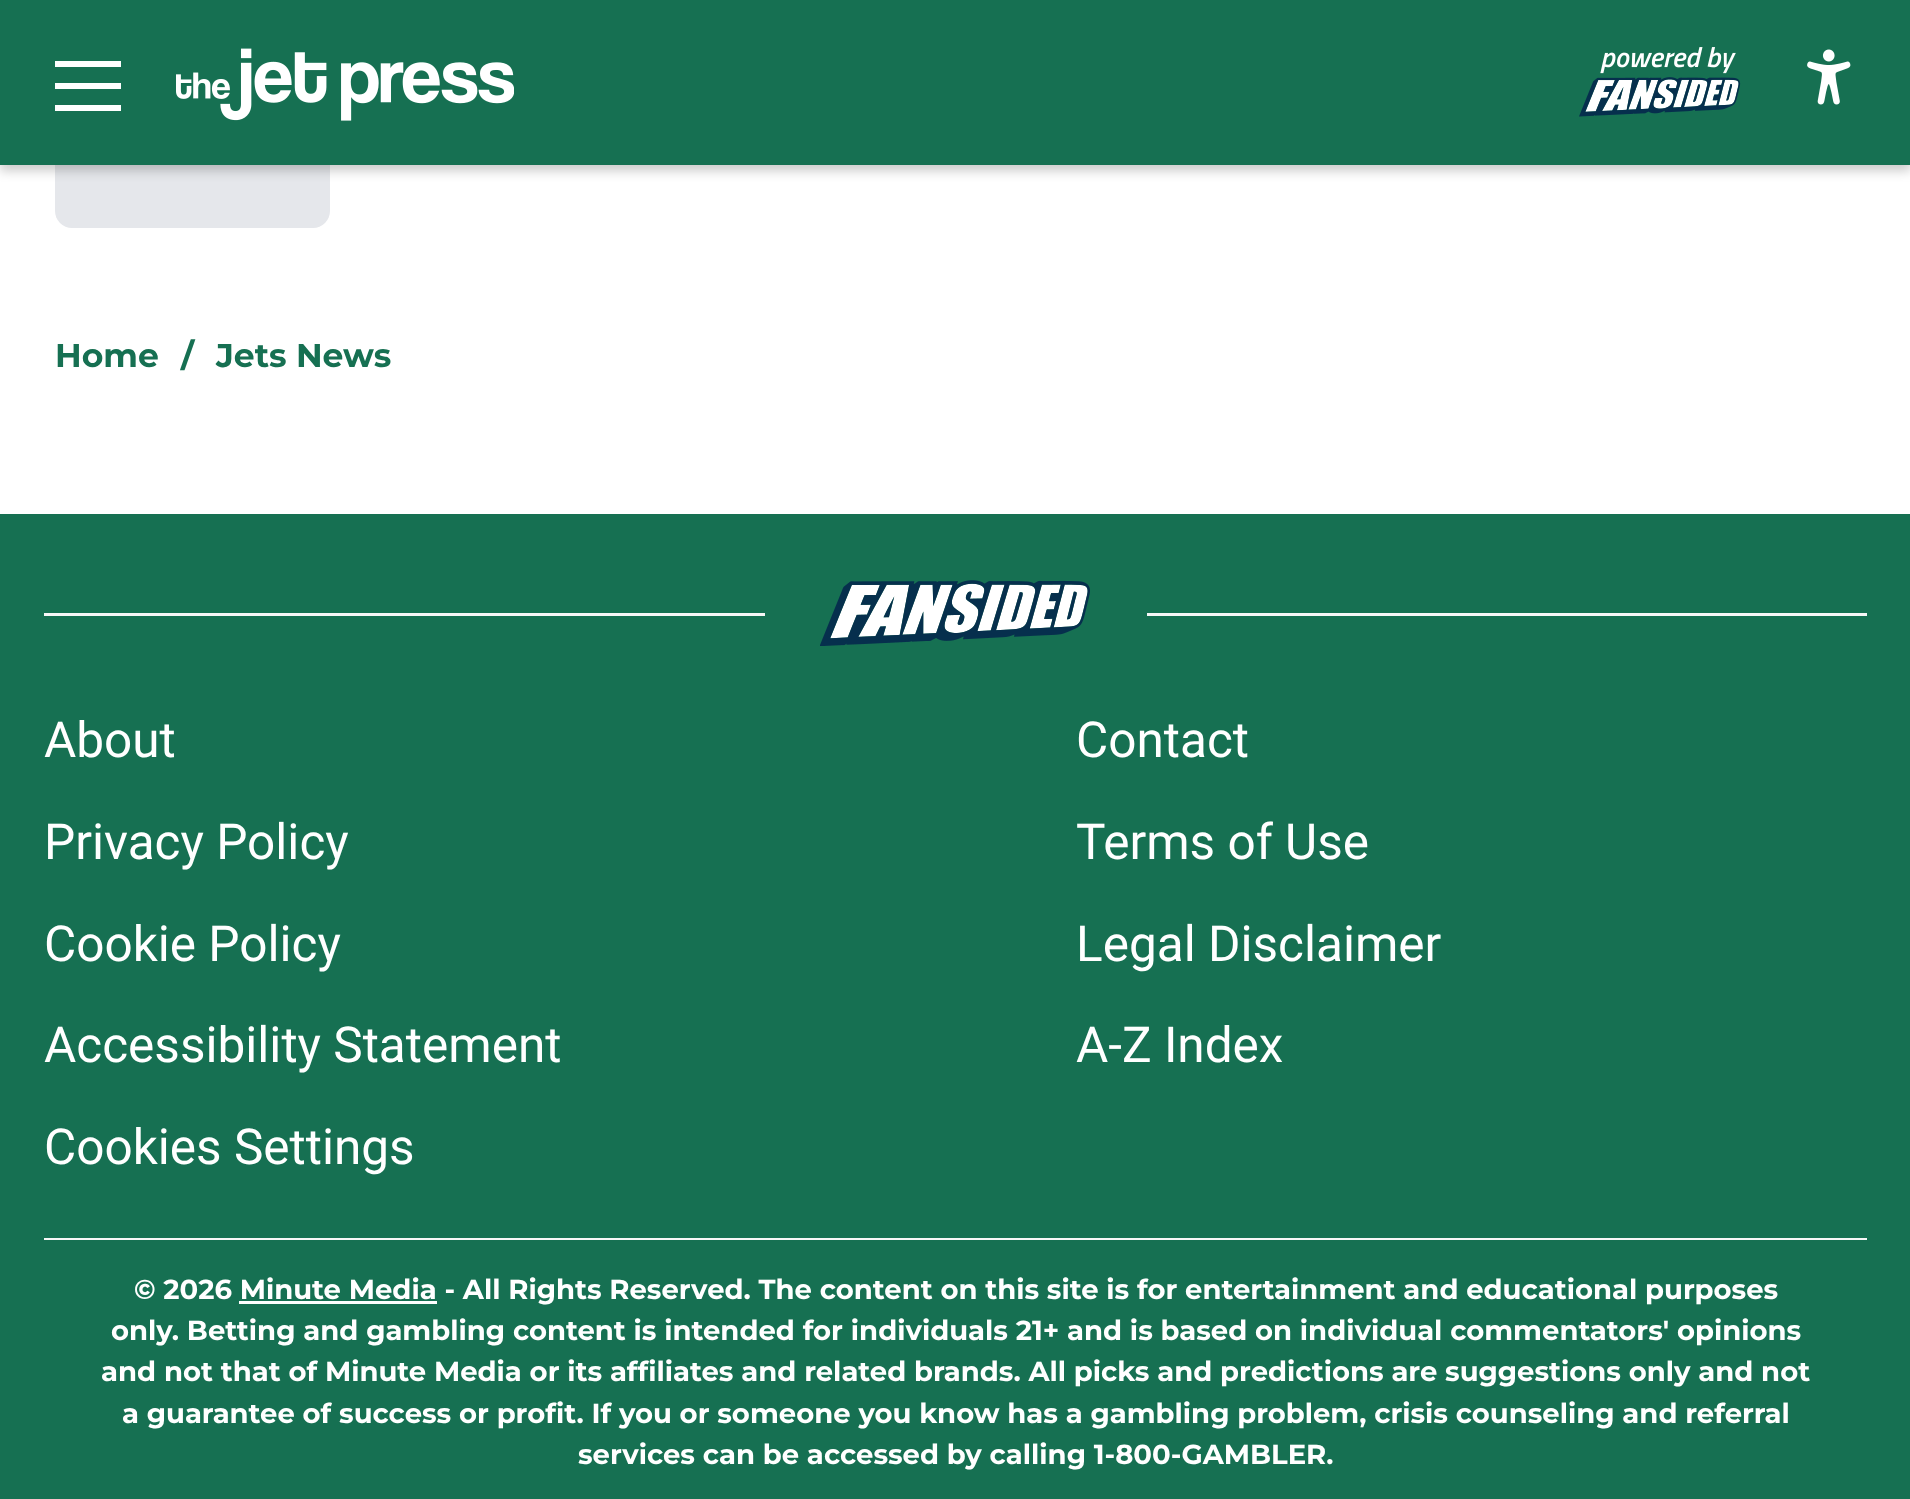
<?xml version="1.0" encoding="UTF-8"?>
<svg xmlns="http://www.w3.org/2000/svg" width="1910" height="1499">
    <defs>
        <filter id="blur1" x="-50%" y="-200%" width="200%" height="500%"><feGaussianBlur stdDeviation="5.5"/></filter>
    </defs>
    <rect width="100%" height="100%" fill="#FFFFFF"/>
    <rect x="55" y="-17" width="275" height="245" rx="17" fill="#E5E7EB"/>
    <rect x="0" y="6" width="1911" height="165" fill="#000000" fill-opacity="0.2" filter="url(#blur1)"/>
    <rect x="0" y="0" width="1910" height="165" fill="#167052"/>
    <rect x="55" y="61" width="66" height="6" fill="#FFFFFF"/>
    <rect x="55" y="83" width="66" height="6" fill="#FFFFFF"/>
    <rect x="55" y="105" width="66" height="6" fill="#FFFFFF"/>
    <image x="176" y="48" width="338" height="73" href="img_01.png"/>
    <image x="1579" y="47" width="162" height="70" href="img_02.png"/>
    <image x="1807" y="49" width="44" height="56" href="img_03.png"/>
    <text x="55" y="367" font-family="Montserrat" font-size="33" font-weight="100" fill="#167052">Home</text>
    <text x="181" y="367" font-family="Montserrat" font-size="33" font-weight="100" fill="#167052">/</text>
    <text x="216" y="367" font-family="Montserrat" font-size="33" font-weight="100" fill="#167052">Jets News</text>
    <rect x="0" y="514" width="1910" height="985" fill="#167052"/>
    <rect x="44" y="613" width="721" height="3" fill="#F7F7F7"/>
    <image x="820" y="580" width="270" height="66" href="img_04.png"/>
    <rect x="1147" y="613" width="720" height="3" fill="#F7F7F7"/>
    <text x="44" y="757" font-family="Roboto" font-size="49.5" fill="#FFFFFF">About</text>
    <text x="1076" y="757" font-family="Roboto" font-size="49.5" fill="#FFFFFF">Contact</text>
    <text x="44" y="859" font-family="Roboto" font-size="49.5" fill="#FFFFFF">Privacy Policy</text>
    <text x="1076" y="859" font-family="Roboto" font-size="49.5" fill="#FFFFFF">Terms of Use</text>
    <text x="44" y="961" font-family="Roboto" font-size="49.5" fill="#FFFFFF">Cookie Policy</text>
    <text x="1076" y="961" font-family="Roboto" font-size="49.5" fill="#FFFFFF">Legal Disclaimer</text>
    <text x="44" y="1062" font-family="Roboto" font-size="49.5" fill="#FFFFFF">Accessibility Statement</text>
    <text x="1076" y="1062" font-family="Roboto" font-size="49.5" fill="#FFFFFF">A-Z Index</text>
    <text x="44" y="1164" font-family="Roboto" font-size="49.5" fill="#FFFFFF">Cookies Settings</text>
    <rect x="44" y="1238" width="1823" height="2" fill="#F7F7F7"/>
    <text x="134" y="1299" font-family="Montserrat" font-size="27.5" font-weight="100" fill="#FFFFFF">© 2026 Minute Media - All Rights Reserved. The content on this site is for entertainment and educational purposes</text>
    <rect x="239" y="1301" width="198" height="3" fill="#FFFFFF"/>
    <text x="111" y="1340" font-family="Montserrat" font-size="27.5" font-weight="100" fill="#FFFFFF">only. Betting and gambling content is intended for individuals 21+ and is based on individual commentators' opinions</text>
    <text x="101" y="1381" font-family="Montserrat" font-size="27.5" font-weight="100" fill="#FFFFFF">and not that of Minute Media or its affiliates and related brands. All picks and predictions are suggestions only and not</text>
    <text x="122" y="1423" font-family="Montserrat" font-size="27.5" font-weight="100" fill="#FFFFFF">a guarantee of success or profit. If you or someone you know has a gambling problem, crisis counseling and referral</text>
    <text x="578" y="1464" font-family="Montserrat" font-size="27.5" font-weight="100" fill="#FFFFFF">services can be accessed by calling 1-800-GAMBLER.</text>
</svg>
